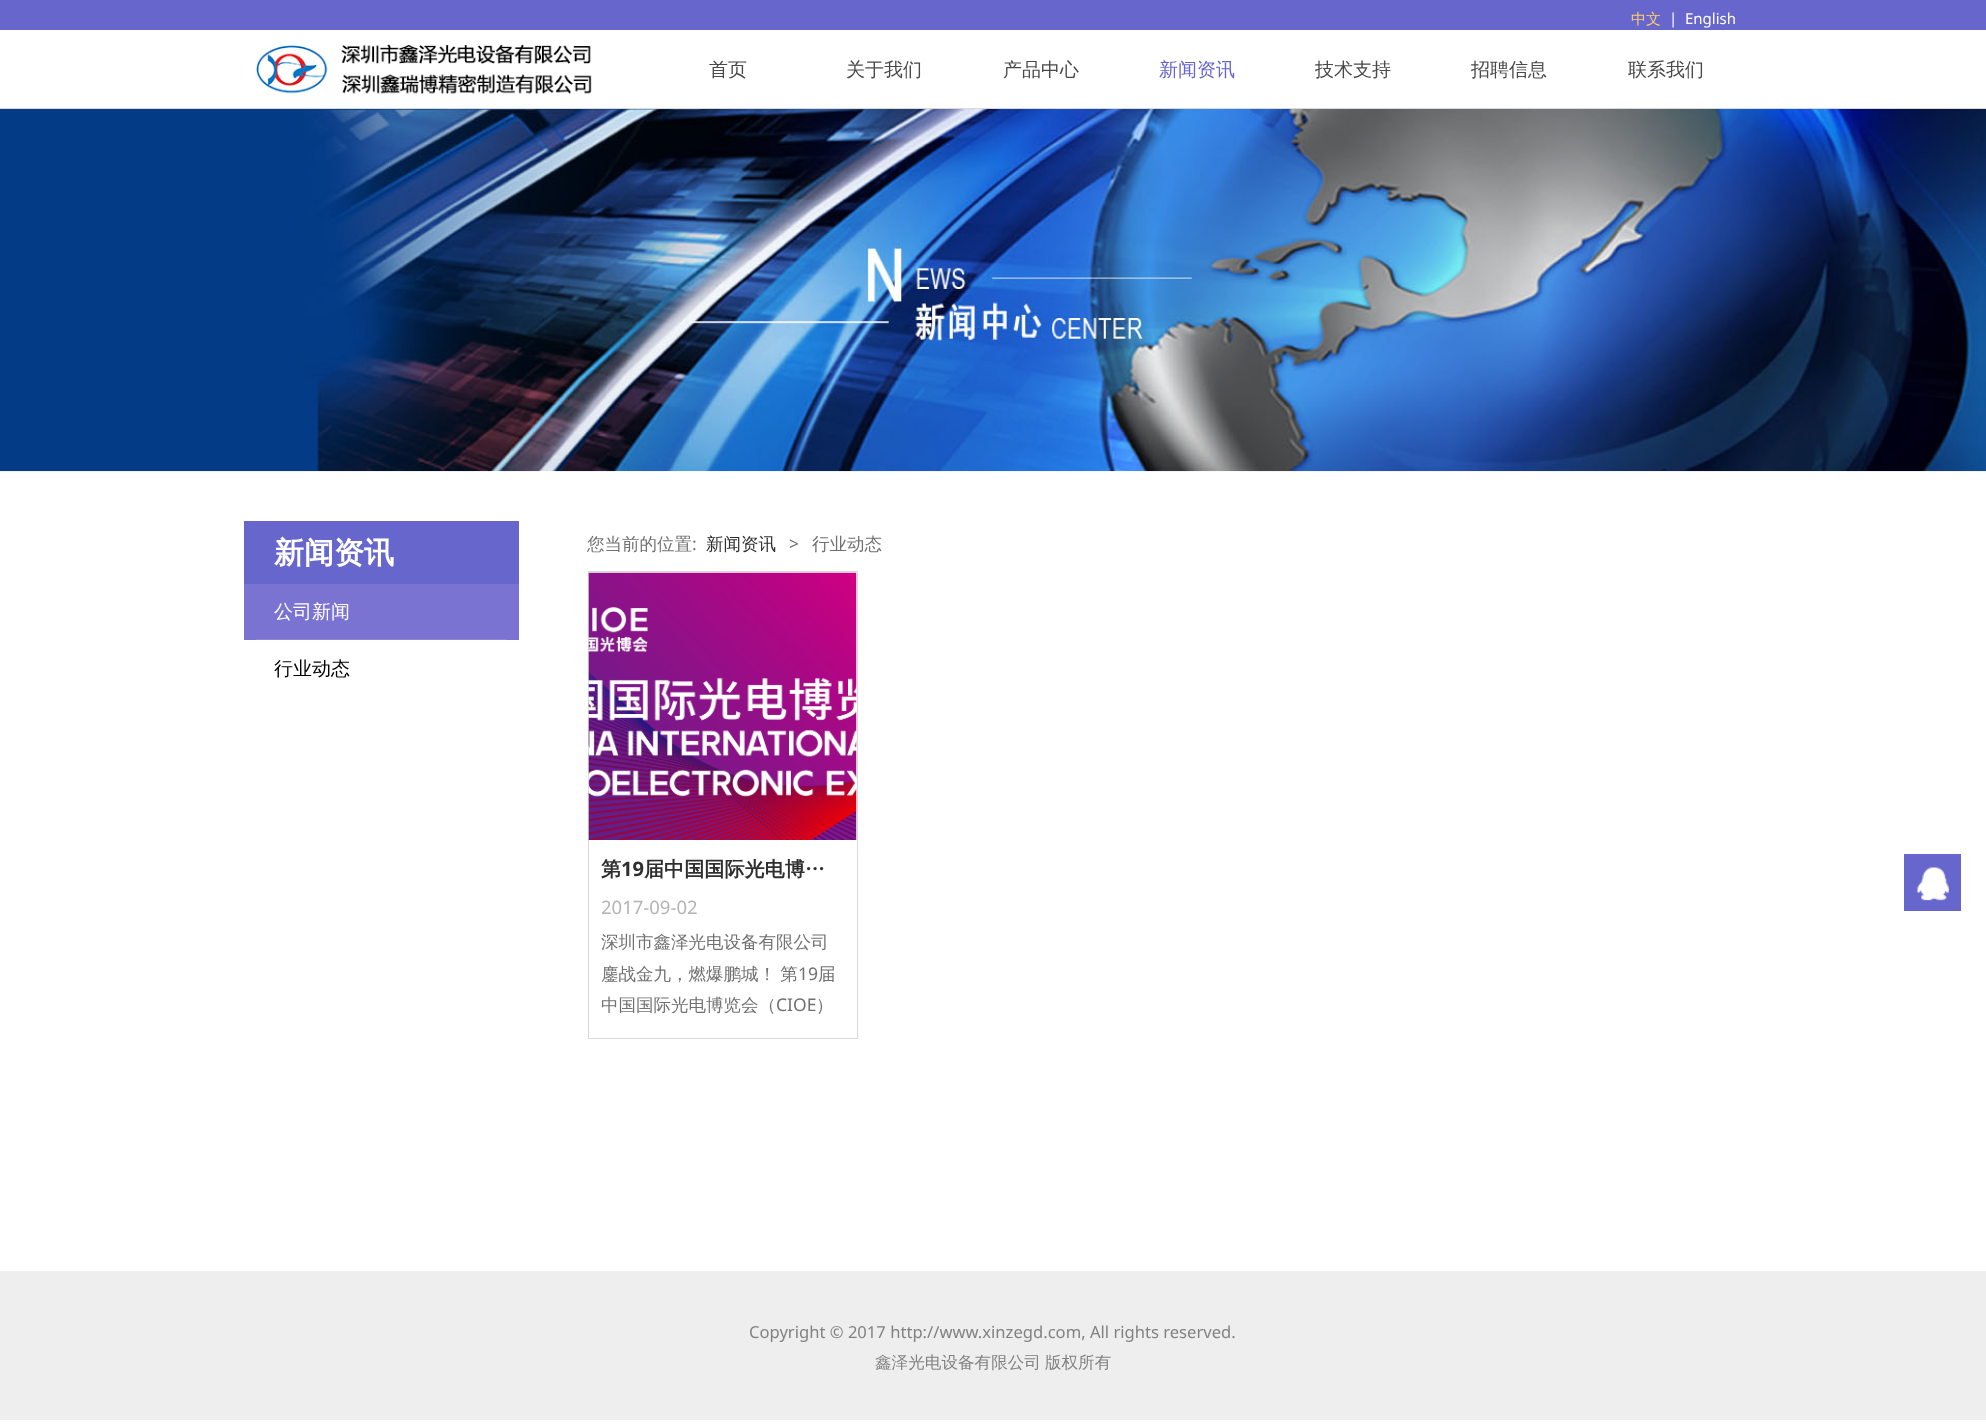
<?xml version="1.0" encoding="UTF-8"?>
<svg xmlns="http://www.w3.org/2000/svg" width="1986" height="1427">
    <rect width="100%" height="100%" fill="#FFFFFF"/>
    <rect x="0" y="0" width="1986" height="30" fill="#6666CC"/>
    <text x="1631" y="24" font-family="WenQuanYi Zen Hei" font-size="15" font-weight="500" fill="#FFD169">中文</text>
    <text x="1669" y="24" font-family="Noto Sans" font-size="15" fill="#FFFFFF">|</text>
    <text x="1685" y="24" font-family="Noto Sans" font-size="15" fill="#FFFFFF">English</text>
    <rect x="0" y="108" width="1986" height="1" fill="#D9D9D9"/>
    <image x="256" y="44" width="336" height="50" href="img_01.png"/>
    <text x="709" y="76" font-family="WenQuanYi Zen Hei" font-size="19" font-weight="500" fill="#494949">首页</text>
    <text x="846" y="76" font-family="WenQuanYi Zen Hei" font-size="19" font-weight="500" fill="#494949">关于我们</text>
    <text x="1003" y="76" font-family="WenQuanYi Zen Hei" font-size="19" font-weight="500" fill="#494949">产品中心</text>
    <text x="1159" y="76" font-family="WenQuanYi Zen Hei" font-size="19" font-weight="500" fill="#6666CC">新闻资讯</text>
    <text x="1315" y="76" font-family="WenQuanYi Zen Hei" font-size="19" font-weight="500" fill="#494949">技术支持</text>
    <text x="1471" y="76" font-family="WenQuanYi Zen Hei" font-size="19" font-weight="500" fill="#494949">招聘信息</text>
    <text x="1628" y="76" font-family="WenQuanYi Zen Hei" font-size="19" font-weight="500" fill="#494949">联系我们</text>
    <image x="0" y="109" width="1986" height="363" href="img_02.png"/>
    <rect x="244" y="521" width="275" height="63" fill="#6666CC"/>
    <text x="274" y="563" font-family="WenQuanYi Zen Hei" font-size="30" font-weight="700" fill="#FFFFFF">新闻资讯</text>
    <rect x="244" y="584" width="275" height="56" fill="#7A73D2"/>
    <rect x="256" y="639" width="250" height="1" fill="#8D87D8"/>
    <text x="274" y="618" font-family="WenQuanYi Zen Hei" font-size="19" font-weight="500" fill="#FFFFFF">公司新闻</text>
    <text x="274" y="675" font-family="WenQuanYi Zen Hei" font-size="19" font-weight="500" fill="#000000">行业动态</text>
    <text x="587" y="550" font-family="WenQuanYi Zen Hei" font-size="17.5" font-weight="500" fill="#717171">您当前的位置</text>
    <text x="692" y="550" font-family="Noto Sans" font-size="17.5" fill="#717171">:</text>
    <text x="706" y="550" font-family="WenQuanYi Zen Hei" font-size="17.5" font-weight="500" fill="#2F2F2F">新闻资讯</text>
    <text x="789" y="550" font-family="Noto Sans" font-size="17.5" fill="#717171">&gt;</text>
    <text x="812" y="550" font-family="WenQuanYi Zen Hei" font-size="17.5" font-weight="500" fill="#717171">行业动态</text>
    <rect x="588.5" y="571.5" width="269" height="467" fill="none" stroke="#D9D9D9"/>
    <image x="588" y="572" width="269" height="268" href="img_03.png"/>
    <text x="601" y="876" font-family="WenQuanYi Zen Hei" font-size="20.1" font-weight="700" fill="#2F2F2F">第</text>
    <text x="621" y="876" font-family="Noto Sans" font-size="20.1" font-weight="700" fill="#2F2F2F">19</text>
    <text x="644" y="876" font-family="WenQuanYi Zen Hei" font-size="20.1" font-weight="700" fill="#2F2F2F">届中国国际光电博…</text>
    <text x="601" y="914" font-family="Noto Sans" font-size="18.5" fill="#B3B3B3">2017-09-02</text>
    <text font-family="WenQuanYi Zen Hei" font-size="17.5" font-weight="500" fill="#717171">
        <tspan x="601" y="948">深圳市鑫泽光电设备有限公司</tspan>
        <tspan x="601" y="980" word-spacing="-1">鏖战金九，燃爆鹏城！ 第</tspan>
    </text>
    <text x="798" y="980" font-family="Noto Sans" font-size="17.5" fill="#717171">19</text>
    <text x="818" y="980" font-family="WenQuanYi Zen Hei" font-size="17.5" font-weight="500" fill="#717171">届</text>
    <text x="601" y="1011" font-family="WenQuanYi Zen Hei" font-size="17.5" font-weight="500" fill="#717171">中国国际光电博览会（</text>
    <text x="776" y="1011" font-family="Noto Sans" font-size="17.5" fill="#717171">CIOE</text>
    <text x="816" y="1011" font-family="WenQuanYi Zen Hei" font-size="17.5" font-weight="500" fill="#717171">）</text>
    <rect x="0" y="1271" width="1986" height="149" fill="#EEEEEE"/>
    <rect x="1904" y="854" width="57" height="57" fill="#6666CC"/>
    <image x="1917" y="867" width="32" height="34" href="img_04.png"/>
    <text x="749" y="1338" font-family="Noto Sans" font-size="16.6" fill="#828282">Copyright © 2017 http://www.xinzegd.com, All rights reserved.</text>
    <text x="875" y="1368" word-spacing="-1" font-family="WenQuanYi Zen Hei" font-size="16.6" font-weight="500" fill="#828282">鑫泽光电设备有限公司 版权所有</text>
</svg>
